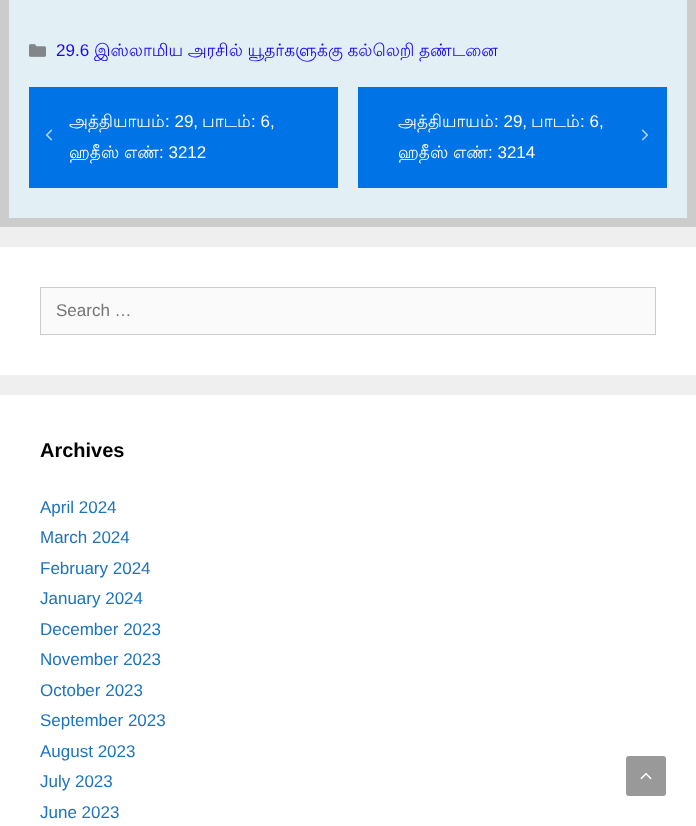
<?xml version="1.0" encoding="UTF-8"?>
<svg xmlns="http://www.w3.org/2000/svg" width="696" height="826">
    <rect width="100%" height="100%" fill="#EFEFEF"/>
    <rect x="4.5" y="-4.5" width="687" height="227" fill="#E2EFF4" stroke="#CCCCCC" stroke-width="9"/>
    <image x="29" y="44" width="17" height="13" href="img_01.png"/>
    <text x="56" y="56" font-family="Liberation Sans" font-size="17" fill="#1605F9">29.6</text>
    <text x="94" y="56" word-spacing="-0.5" font-family="Lohit Tamil" font-size="17" fill="#1605F9">இஸ்லாமிய அரசில் யூதர்களுக்கு கல்லெறி தண்டனை</text>
    <rect x="29" y="87" width="309" height="101" fill="#0073E6"/>
    <image x="45" y="129" width="8" height="12" href="img_02.png"/>
    <text x="69" y="127" font-family="Lohit Tamil" font-size="17" fill="#FFFFFF">அத்தியாயம்</text>
    <text x="165" y="127" font-family="Liberation Sans" font-size="17" fill="#FFFFFF">: 29,</text>
    <text x="202" y="127" font-family="Lohit Tamil" font-size="17" fill="#FFFFFF">பாடம்</text>
    <text x="251" y="127" font-family="Liberation Sans" font-size="17" fill="#FFFFFF">: 6,</text>
    <text x="69" y="158" font-family="Lohit Tamil" font-size="17" fill="#FFFFFF">ஹதீஸ்</text>
    <text x="124" y="158" font-family="Lohit Tamil" font-size="17" fill="#FFFFFF">எண்</text>
    <text x="159" y="158" font-family="Liberation Sans" font-size="17" fill="#FFFFFF">: 3212</text>
    <rect x="358" y="87" width="309" height="101" fill="#0073E6"/>
    <text x="398" y="127" font-family="Lohit Tamil" font-size="17" fill="#FFFFFF">அத்தியாயம்</text>
    <text x="494" y="127" font-family="Liberation Sans" font-size="17" fill="#FFFFFF">: 29,</text>
    <text x="531" y="127" font-family="Lohit Tamil" font-size="17" fill="#FFFFFF">பாடம்</text>
    <text x="580" y="127" font-family="Liberation Sans" font-size="17" fill="#FFFFFF">: 6,</text>
    <text x="398" y="158" font-family="Lohit Tamil" font-size="17" fill="#FFFFFF">ஹதீஸ்</text>
    <text x="453" y="158" font-family="Lohit Tamil" font-size="17" fill="#FFFFFF">எண்</text>
    <text x="488" y="158" font-family="Liberation Sans" font-size="17" fill="#FFFFFF">: 3214</text>
    <image x="641" y="129" width="8" height="12" href="img_03.png"/>
    <rect x="0" y="247" width="696" height="128" fill="#FFFFFF"/>
    <rect x="40.5" y="287.5" width="615" height="47" fill="#FAFAFA" stroke="#CCCCCC"/>
    <text x="56" y="316" font-family="Liberation Sans" font-size="17" fill="#757575">Search …</text>
    <rect x="0" y="395" width="696" height="431" fill="#FFFFFF"/>
    <text x="40" y="457" font-family="Liberation Sans" font-size="20" font-weight="700" fill="#000000">Archives</text>
    <text font-family="Liberation Sans" font-size="17" fill="#1E73BE">
        <tspan x="40" y="513">April 2024</tspan>
        <tspan x="40" y="543">March 2024</tspan>
        <tspan x="40" y="574">February 2024</tspan>
        <tspan x="40" y="604">January 2024</tspan>
        <tspan x="40" y="635">December 2023</tspan>
        <tspan x="40" y="665">November 2023</tspan>
        <tspan x="40" y="696">October 2023</tspan>
        <tspan x="40" y="726">September 2023</tspan>
        <tspan x="40" y="757">August 2023</tspan>
        <tspan x="40" y="787">July 2023</tspan>
        <tspan x="40" y="818">June 2023</tspan>
    </text>
    <rect x="626" y="756" width="40" height="40" rx="3" fill="#999999"/>
    <image x="640" y="772" width="12" height="8" href="img_04.png"/>
</svg>
